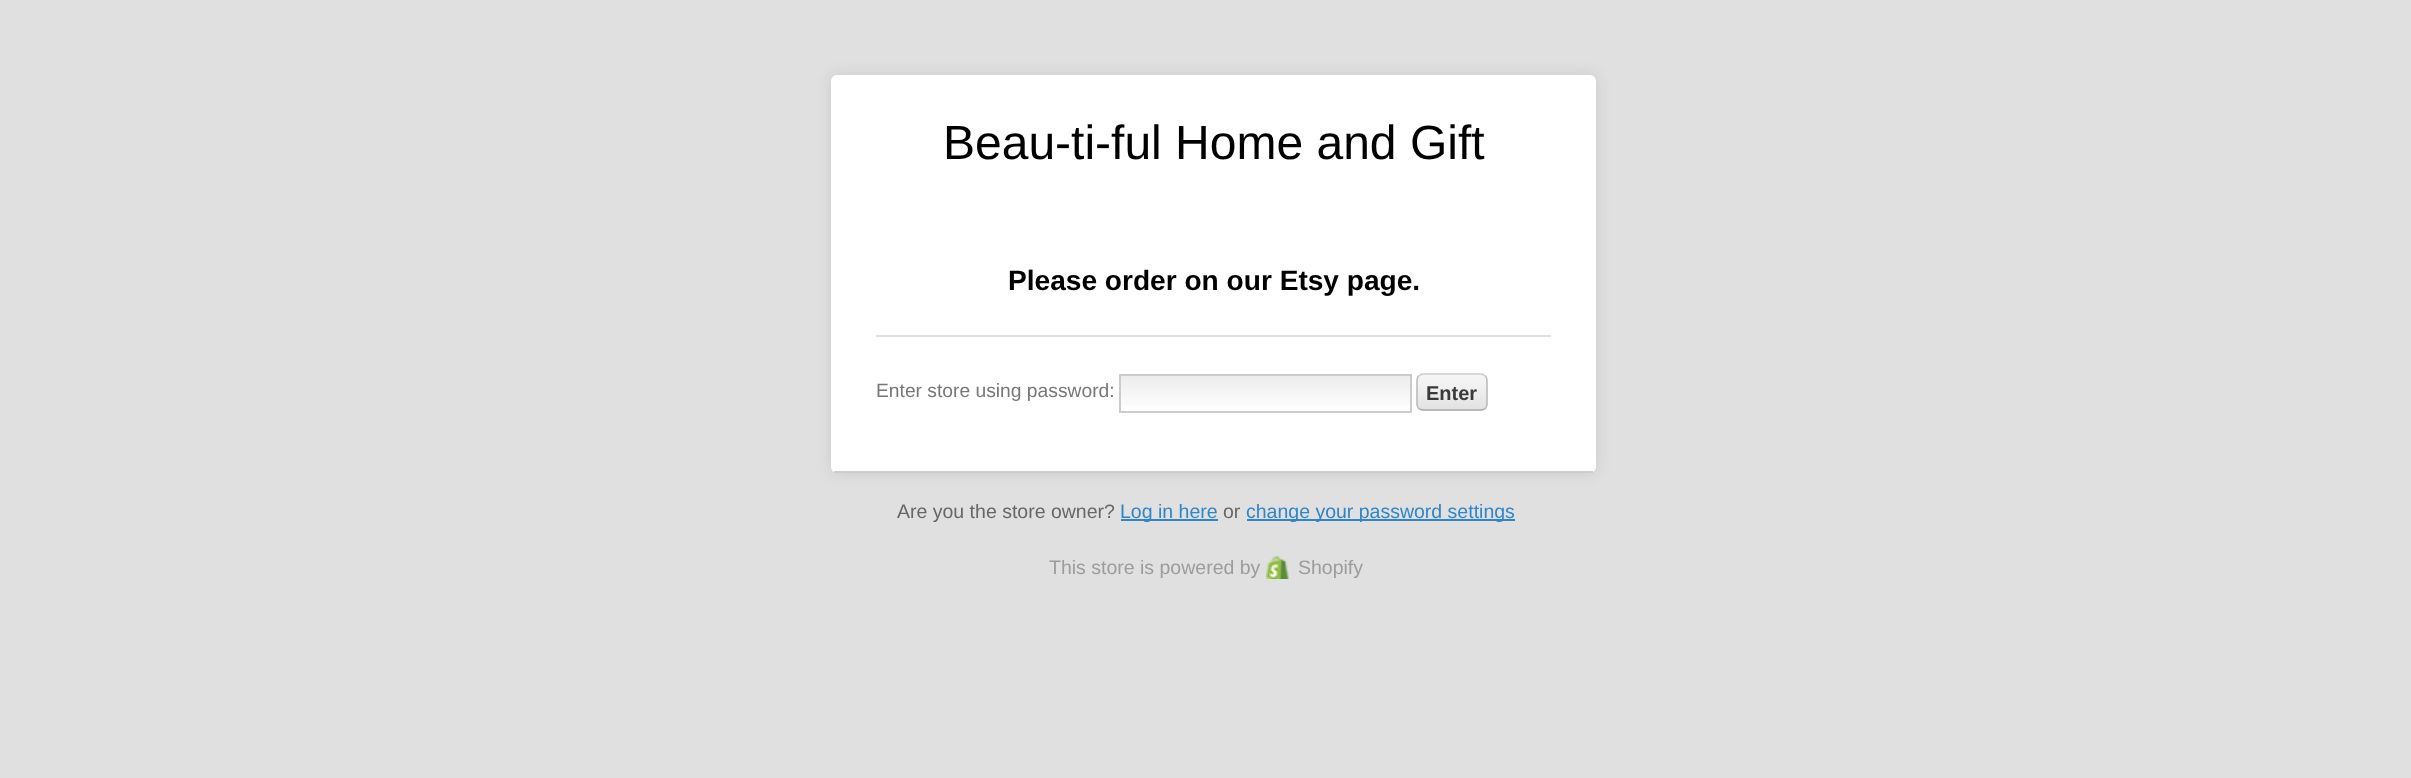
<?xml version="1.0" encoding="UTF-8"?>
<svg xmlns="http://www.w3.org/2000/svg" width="2411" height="778">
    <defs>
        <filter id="blur1" x="-50%" y="-200%" width="200%" height="500%"><feGaussianBlur stdDeviation="7.5"/></filter>
        <linearGradient id="g1" gradientUnits="userSpaceOnUse" x1="1121" y1="375" x2="1121" y2="411"><stop offset="0" stop-color="#ECECEC"/><stop offset="1" stop-color="#FFFFFF"/></linearGradient>
    </defs>
    <rect width="100%" height="100%" fill="#E0E0E0"/>
    <rect x="831" y="75" width="765" height="398" rx="6" fill="#000000" fill-opacity="0.1" filter="url(#blur1)"/>
    <rect x="831" y="75" width="765" height="398" rx="6" fill="#FFFFFF"/>
    <rect x="834" y="471" width="759" height="2" fill="#CCCCCC"/>
    <text x="943" y="159" font-family="Liberation Sans" font-size="48" fill="#000000">Beau-ti-ful Home and Gift</text>
    <text x="1008" y="290" font-family="Liberation Sans" font-size="28.1" font-weight="700" fill="#000000">Please order on our Etsy page.</text>
    <rect x="876" y="335" width="675" height="2" fill="#E0E0E0"/>
    <text x="876" y="397" font-family="Liberation Sans" font-size="19.25" fill="#777777">Enter store using password:</text>
    <rect x="1121" y="376" width="289" height="30" fill="url(#g1)"/>
    <rect x="1120" y="375" width="291" height="37" fill="none" stroke="#CCCCCC" stroke-width="2"/>
    <image x="1416" y="375" width="72" height="36" href="img_01.png"/>
    <path d="M 1418.5 376 C 1420 375 1421.5 374 1423.5 374 H 1480.5 C 1482.5 374 1484 375 1485.5 376" fill="none" stroke="#CCCCCC" stroke-width="1.5"/>
    <path d="M 1485.5 376 C 1486.5 377.5 1487 379 1487 381 V 403.5 C 1487 405.5 1486.5 407 1485.5 408.5" fill="none" stroke="#BBBBBB" stroke-width="1.5"/>
    <path d="M 1485.5 408.5 C 1484 409.5 1482.5 410 1480.5 410 H 1423.5 C 1421.5 410 1420 409.5 1418.5 408.5" fill="none" stroke="#AAAAAA" stroke-width="1.5"/>
    <path d="M 1418.5 408.5 C 1417.5 407 1417 405.5 1417 403.5 V 381 C 1417 379 1417.5 377.5 1418.5 376" fill="none" stroke="#BBBBBB" stroke-width="1.5"/>
    <text x="1426" y="400" font-family="Liberation Sans" font-size="20" font-weight="700" fill="#3A3A3A">Enter</text>
    <text x="897" y="518" font-family="Liberation Sans" font-size="19.5" fill="#666666">Are you the store owner?</text>
    <rect x="1121" y="519" width="97" height="2" fill="#3084CA"/>
    <text x="1120" y="518" font-family="Liberation Sans" font-size="19.5" fill="#3084CA">Log in here</text>
    <text x="1223" y="518" font-family="Liberation Sans" font-size="19.5" fill="#666666">or</text>
    <rect x="1247" y="519" width="268" height="2" fill="#3084CA"/>
    <text x="1246" y="518" font-family="Liberation Sans" font-size="19.5" fill="#3084CA">change your password settings</text>
    <text x="1049" y="574" font-family="Liberation Sans" font-size="19.5" fill="#9C9C9C">This store is powered by</text>
    <image x="1266" y="556" width="23" height="23" href="img_02.png"/>
    <text x="1298" y="574" font-family="Liberation Sans" font-size="19.5" fill="#9C9C9C">Shopify</text>
</svg>
